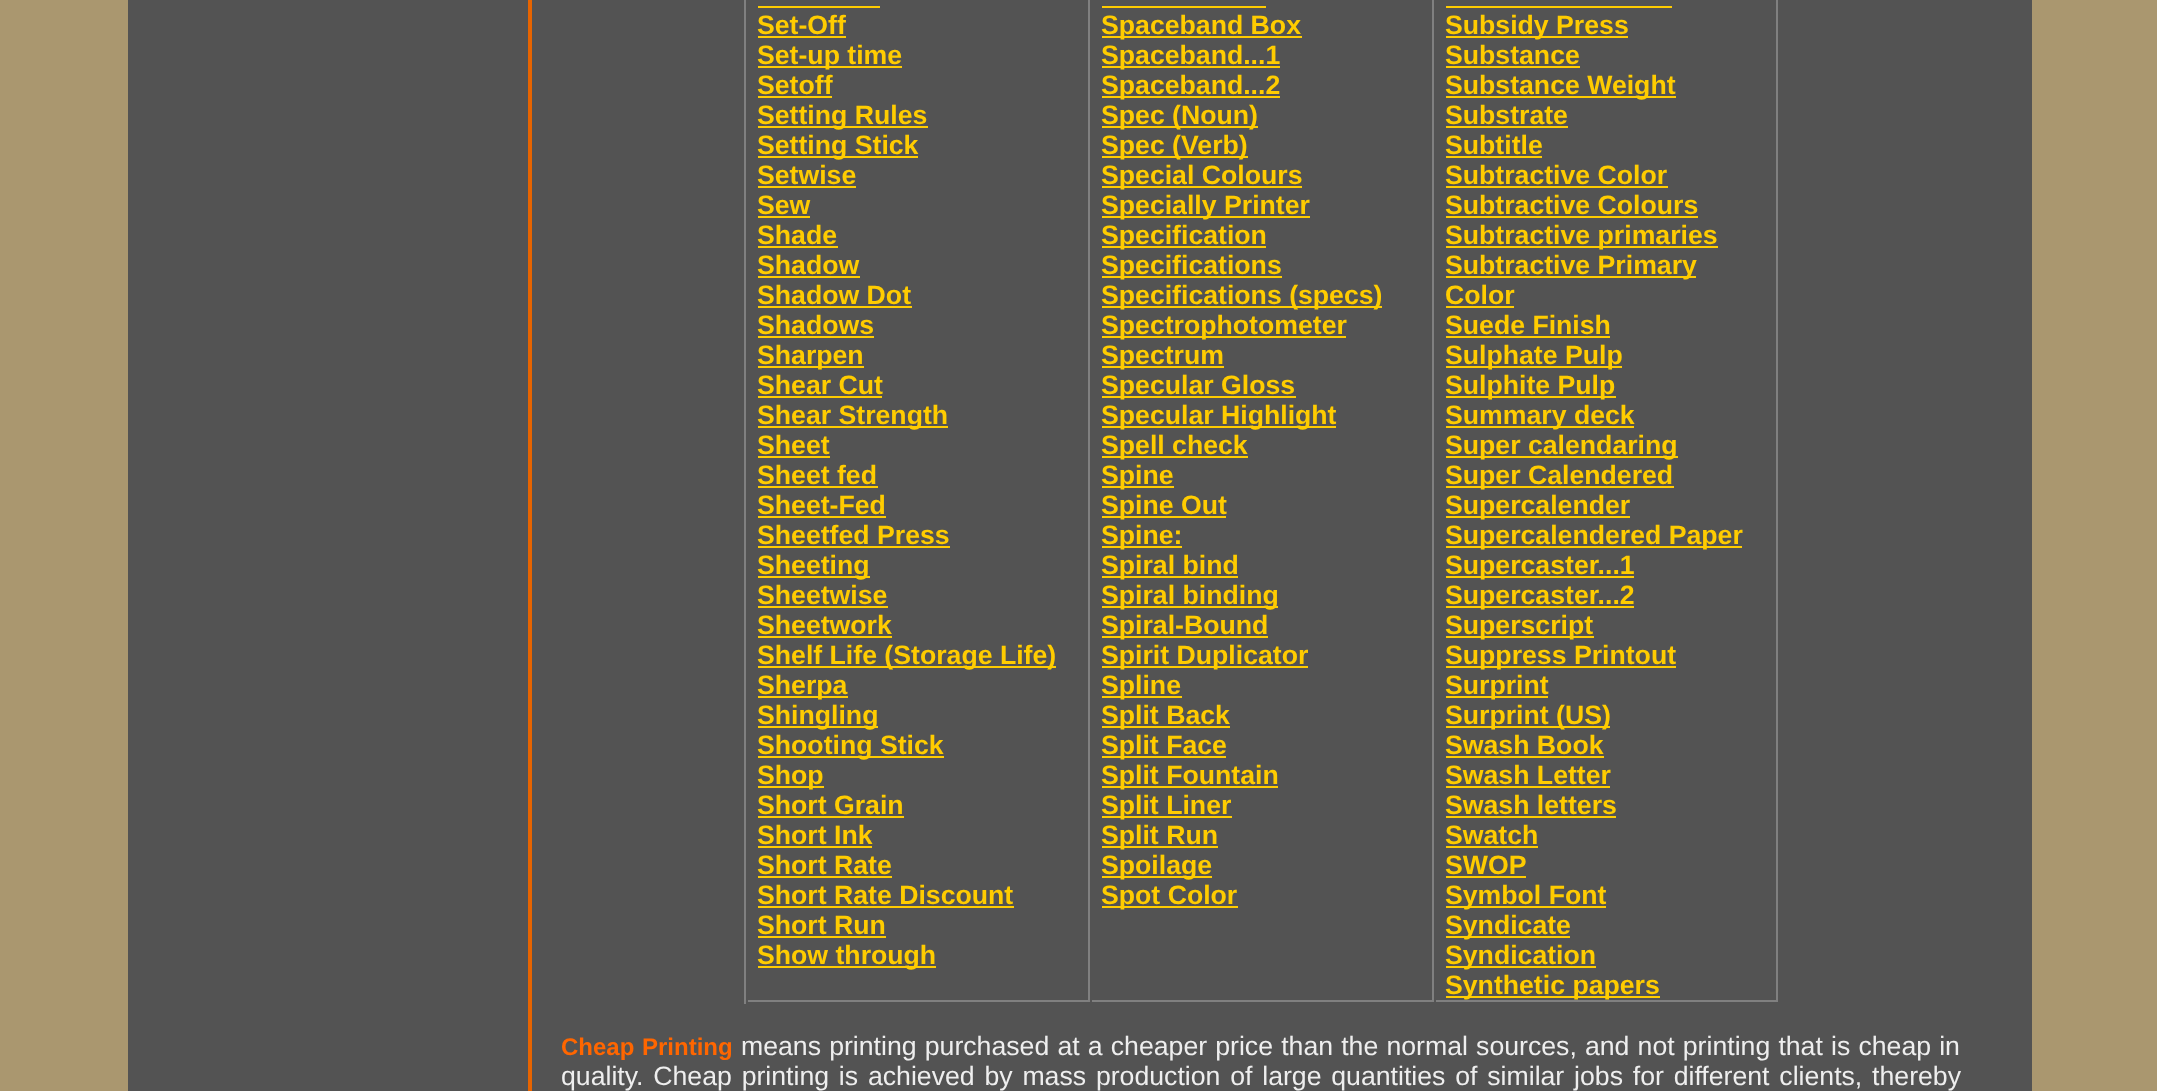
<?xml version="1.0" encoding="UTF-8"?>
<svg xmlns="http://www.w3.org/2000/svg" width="2157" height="1091">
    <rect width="100%" height="100%" fill="#AA976F"/>
    <rect x="128" y="0" width="1904" height="1091" fill="#535353"/>
    <rect x="528" y="0" width="4" height="1091" fill="#E76400"/>
    <rect x="744" y="0" width="2" height="1004" fill="#808080"/>
    <rect x="1088" y="0" width="2" height="1002" fill="#808080"/>
    <rect x="746" y="1000" width="344" height="2" fill="#808080"/>
    <rect x="746" y="1000" width="2" height="2" fill="#555555"/>
    <rect x="758" y="6" width="122" height="2" fill="#FFCC00"/>
    <text x="757" y="34" font-family="Liberation Sans" font-size="26.67" font-weight="700" fill="#FFCC00">Set-Off</text>
    <rect x="758" y="36" width="88" height="2" fill="#FFCC00"/>
    <rect x="758" y="66" width="144" height="2" fill="#FFCC00"/>
    <text font-family="Liberation Sans" font-size="26.67" font-weight="700" fill="#FFCC00">
        <tspan x="757" y="64">Set-up time</tspan>
        <tspan x="757" y="94">Setoff</tspan>
    </text>
    <rect x="758" y="96" width="74" height="2" fill="#FFCC00"/>
    <rect x="758" y="126" width="170" height="2" fill="#FFCC00"/>
    <text x="757" y="124" font-family="Liberation Sans" font-size="26.67" font-weight="700" fill="#FFCC00">Setting Rules</text>
    <rect x="758" y="156" width="160" height="2" fill="#FFCC00"/>
    <text font-family="Liberation Sans" font-size="26.67" font-weight="700" fill="#FFCC00">
        <tspan x="757" y="154">Setting Stick</tspan>
        <tspan x="757" y="184">Setwise</tspan>
    </text>
    <rect x="758" y="186" width="98" height="2" fill="#FFCC00"/>
    <text x="757" y="214" font-family="Liberation Sans" font-size="26.67" font-weight="700" fill="#FFCC00">Sew</text>
    <rect x="758" y="216" width="52" height="2" fill="#FFCC00"/>
    <text x="757" y="244" font-family="Liberation Sans" font-size="26.67" font-weight="700" fill="#FFCC00">Shade</text>
    <rect x="758" y="246" width="80" height="2" fill="#FFCC00"/>
    <text x="757" y="274" font-family="Liberation Sans" font-size="26.67" font-weight="700" fill="#FFCC00">Shadow</text>
    <rect x="758" y="276" width="102" height="2" fill="#FFCC00"/>
    <text x="757" y="304" font-family="Liberation Sans" font-size="26.67" font-weight="700" fill="#FFCC00">Shadow Dot</text>
    <rect x="758" y="306" width="154" height="2" fill="#FFCC00"/>
    <text x="757" y="334" font-family="Liberation Sans" font-size="26.67" font-weight="700" fill="#FFCC00">Shadows</text>
    <rect x="758" y="336" width="116" height="2" fill="#FFCC00"/>
    <rect x="758" y="366" width="106" height="2" fill="#FFCC00"/>
    <text font-family="Liberation Sans" font-size="26.67" font-weight="700" fill="#FFCC00">
        <tspan x="757" y="364">Sharpen</tspan>
        <tspan x="757" y="394">Shear Cut</tspan>
    </text>
    <rect x="758" y="396" width="124" height="2" fill="#FFCC00"/>
    <rect x="758" y="426" width="190" height="2" fill="#FFCC00"/>
    <text font-family="Liberation Sans" font-size="26.67" font-weight="700" fill="#FFCC00">
        <tspan x="757" y="424">Shear Strength</tspan>
        <tspan x="757" y="454">Sheet</tspan>
    </text>
    <rect x="758" y="456" width="72" height="2" fill="#FFCC00"/>
    <text x="757" y="484" font-family="Liberation Sans" font-size="26.67" font-weight="700" fill="#FFCC00">Sheet fed</text>
    <rect x="758" y="486" width="120" height="2" fill="#FFCC00"/>
    <text x="757" y="514" font-family="Liberation Sans" font-size="26.67" font-weight="700" fill="#FFCC00">Sheet-Fed</text>
    <rect x="758" y="516" width="128" height="2" fill="#FFCC00"/>
    <text x="757" y="544" font-family="Liberation Sans" font-size="26.67" font-weight="700" fill="#FFCC00">Sheetfed Press</text>
    <rect x="758" y="546" width="192" height="2" fill="#FFCC00"/>
    <rect x="758" y="576" width="112" height="2" fill="#FFCC00"/>
    <text font-family="Liberation Sans" font-size="26.67" font-weight="700" fill="#FFCC00">
        <tspan x="757" y="574">Sheeting</tspan>
        <tspan x="757" y="604">Sheetwise</tspan>
    </text>
    <rect x="758" y="606" width="130" height="2" fill="#FFCC00"/>
    <text x="757" y="634" font-family="Liberation Sans" font-size="26.67" font-weight="700" fill="#FFCC00">Sheetwork</text>
    <rect x="758" y="636" width="134" height="2" fill="#FFCC00"/>
    <rect x="758" y="666" width="298" height="2" fill="#FFCC00"/>
    <text x="757" y="664" font-family="Liberation Sans" font-size="26.67" font-weight="700" fill="#FFCC00">Shelf Life (Storage Life)</text>
    <rect x="758" y="696" width="90" height="2" fill="#FFCC00"/>
    <text x="757" y="694" font-family="Liberation Sans" font-size="26.67" font-weight="700" fill="#FFCC00">Sherpa</text>
    <rect x="758" y="726" width="120" height="2" fill="#FFCC00"/>
    <text x="757" y="724" font-family="Liberation Sans" font-size="26.67" font-weight="700" fill="#FFCC00">Shingling</text>
    <rect x="758" y="756" width="186" height="2" fill="#FFCC00"/>
    <text x="757" y="754" font-family="Liberation Sans" font-size="26.67" font-weight="700" fill="#FFCC00">Shooting Stick</text>
    <rect x="758" y="786" width="66" height="2" fill="#FFCC00"/>
    <text font-family="Liberation Sans" font-size="26.67" font-weight="700" fill="#FFCC00">
        <tspan x="757" y="784">Shop</tspan>
        <tspan x="757" y="814">Short Grain</tspan>
    </text>
    <rect x="758" y="816" width="146" height="2" fill="#FFCC00"/>
    <text x="757" y="844" font-family="Liberation Sans" font-size="26.67" font-weight="700" fill="#FFCC00">Short Ink</text>
    <rect x="758" y="846" width="114" height="2" fill="#FFCC00"/>
    <text x="757" y="874" font-family="Liberation Sans" font-size="26.67" font-weight="700" fill="#FFCC00">Short Rate</text>
    <rect x="758" y="876" width="134" height="2" fill="#FFCC00"/>
    <text x="757" y="904" font-family="Liberation Sans" font-size="26.67" font-weight="700" fill="#FFCC00">Short Rate Discount</text>
    <rect x="758" y="906" width="256" height="2" fill="#FFCC00"/>
    <text x="757" y="934" font-family="Liberation Sans" font-size="26.67" font-weight="700" fill="#FFCC00">Short Run</text>
    <rect x="758" y="936" width="128" height="2" fill="#FFCC00"/>
    <rect x="758" y="966" width="178" height="2" fill="#FFCC00"/>
    <text x="757" y="964" font-family="Liberation Sans" font-size="26.67" font-weight="700" fill="#FFCC00">Show through</text>
    <rect x="1432" y="0" width="2" height="1002" fill="#808080"/>
    <rect x="1090" y="1000" width="344" height="2" fill="#808080"/>
    <rect x="1090" y="1000" width="2" height="2" fill="#555555"/>
    <rect x="1102" y="6" width="164" height="2" fill="#FFCC00"/>
    <rect x="1102" y="36" width="200" height="2" fill="#FFCC00"/>
    <text x="1101" y="34" font-family="Liberation Sans" font-size="26.67" font-weight="700" fill="#FFCC00">Spaceband Box</text>
    <rect x="1102" y="66" width="178" height="2" fill="#FFCC00"/>
    <text x="1101" y="64" font-family="Liberation Sans" font-size="26.67" font-weight="700" fill="#FFCC00">Spaceband...1</text>
    <rect x="1102" y="96" width="178" height="2" fill="#FFCC00"/>
    <text x="1101" y="94" font-family="Liberation Sans" font-size="26.67" font-weight="700" fill="#FFCC00">Spaceband...2</text>
    <rect x="1102" y="126" width="156" height="2" fill="#FFCC00"/>
    <text x="1101" y="124" font-family="Liberation Sans" font-size="26.67" font-weight="700" fill="#FFCC00">Spec (Noun)</text>
    <rect x="1102" y="156" width="146" height="2" fill="#FFCC00"/>
    <text x="1101" y="154" font-family="Liberation Sans" font-size="26.67" font-weight="700" fill="#FFCC00">Spec (Verb)</text>
    <rect x="1102" y="186" width="200" height="2" fill="#FFCC00"/>
    <text x="1101" y="184" font-family="Liberation Sans" font-size="26.67" font-weight="700" fill="#FFCC00">Special Colours</text>
    <rect x="1102" y="216" width="208" height="2" fill="#FFCC00"/>
    <text x="1101" y="214" font-family="Liberation Sans" font-size="26.67" font-weight="700" fill="#FFCC00">Specially Printer</text>
    <rect x="1102" y="246" width="164" height="2" fill="#FFCC00"/>
    <text x="1101" y="244" font-family="Liberation Sans" font-size="26.67" font-weight="700" fill="#FFCC00">Specification</text>
    <rect x="1102" y="276" width="180" height="2" fill="#FFCC00"/>
    <text x="1101" y="274" font-family="Liberation Sans" font-size="26.67" font-weight="700" fill="#FFCC00">Specifications</text>
    <rect x="1102" y="306" width="280" height="2" fill="#FFCC00"/>
    <text x="1101" y="304" font-family="Liberation Sans" font-size="26.67" font-weight="700" fill="#FFCC00">Specifications (specs)</text>
    <rect x="1102" y="336" width="244" height="2" fill="#FFCC00"/>
    <text x="1101" y="334" font-family="Liberation Sans" font-size="26.67" font-weight="700" fill="#FFCC00">Spectrophotometer</text>
    <rect x="1102" y="366" width="122" height="2" fill="#FFCC00"/>
    <text x="1101" y="364" font-family="Liberation Sans" font-size="26.67" font-weight="700" fill="#FFCC00">Spectrum</text>
    <rect x="1102" y="396" width="194" height="2" fill="#FFCC00"/>
    <text x="1101" y="394" font-family="Liberation Sans" font-size="26.67" font-weight="700" fill="#FFCC00">Specular Gloss</text>
    <rect x="1102" y="426" width="234" height="2" fill="#FFCC00"/>
    <text x="1101" y="424" font-family="Liberation Sans" font-size="26.67" font-weight="700" fill="#FFCC00">Specular Highlight</text>
    <rect x="1102" y="456" width="146" height="2" fill="#FFCC00"/>
    <text x="1101" y="454" font-family="Liberation Sans" font-size="26.67" font-weight="700" fill="#FFCC00">Spell check</text>
    <rect x="1102" y="486" width="72" height="2" fill="#FFCC00"/>
    <text x="1101" y="484" font-family="Liberation Sans" font-size="26.67" font-weight="700" fill="#FFCC00">Spine</text>
    <rect x="1102" y="516" width="124" height="2" fill="#FFCC00"/>
    <text x="1101" y="514" font-family="Liberation Sans" font-size="26.67" font-weight="700" fill="#FFCC00">Spine Out</text>
    <rect x="1102" y="546" width="80" height="2" fill="#FFCC00"/>
    <text x="1101" y="544" font-family="Liberation Sans" font-size="26.67" font-weight="700" fill="#FFCC00">Spine:</text>
    <rect x="1102" y="576" width="136" height="2" fill="#FFCC00"/>
    <text x="1101" y="574" font-family="Liberation Sans" font-size="26.67" font-weight="700" fill="#FFCC00">Spiral bind</text>
    <rect x="1102" y="606" width="176" height="2" fill="#FFCC00"/>
    <text x="1101" y="604" font-family="Liberation Sans" font-size="26.67" font-weight="700" fill="#FFCC00">Spiral binding</text>
    <rect x="1102" y="636" width="166" height="2" fill="#FFCC00"/>
    <text x="1101" y="634" font-family="Liberation Sans" font-size="26.67" font-weight="700" fill="#FFCC00">Spiral-Bound</text>
    <rect x="1102" y="666" width="206" height="2" fill="#FFCC00"/>
    <text x="1101" y="664" font-family="Liberation Sans" font-size="26.67" font-weight="700" fill="#FFCC00">Spirit Duplicator</text>
    <rect x="1102" y="696" width="80" height="2" fill="#FFCC00"/>
    <text x="1101" y="694" font-family="Liberation Sans" font-size="26.67" font-weight="700" fill="#FFCC00">Spline</text>
    <rect x="1102" y="726" width="128" height="2" fill="#FFCC00"/>
    <text x="1101" y="724" font-family="Liberation Sans" font-size="26.67" font-weight="700" fill="#FFCC00">Split Back</text>
    <rect x="1102" y="756" width="124" height="2" fill="#FFCC00"/>
    <text x="1101" y="754" font-family="Liberation Sans" font-size="26.67" font-weight="700" fill="#FFCC00">Split Face</text>
    <rect x="1102" y="786" width="176" height="2" fill="#FFCC00"/>
    <text x="1101" y="784" font-family="Liberation Sans" font-size="26.67" font-weight="700" fill="#FFCC00">Split Fountain</text>
    <rect x="1102" y="816" width="130" height="2" fill="#FFCC00"/>
    <text x="1101" y="814" font-family="Liberation Sans" font-size="26.67" font-weight="700" fill="#FFCC00">Split Liner</text>
    <rect x="1102" y="846" width="116" height="2" fill="#FFCC00"/>
    <text x="1101" y="844" font-family="Liberation Sans" font-size="26.67" font-weight="700" fill="#FFCC00">Split Run</text>
    <rect x="1102" y="876" width="110" height="2" fill="#FFCC00"/>
    <text x="1101" y="874" font-family="Liberation Sans" font-size="26.67" font-weight="700" fill="#FFCC00">Spoilage</text>
    <rect x="1102" y="906" width="136" height="2" fill="#FFCC00"/>
    <text x="1101" y="904" font-family="Liberation Sans" font-size="26.67" font-weight="700" fill="#FFCC00">Spot Color</text>
    <rect x="1776" y="0" width="2" height="1002" fill="#808080"/>
    <rect x="1434" y="1000" width="344" height="2" fill="#808080"/>
    <rect x="1434" y="1000" width="2" height="2" fill="#555555"/>
    <rect x="1446" y="6" width="226" height="2" fill="#FFCC00"/>
    <rect x="1446" y="36" width="182" height="2" fill="#FFCC00"/>
    <text font-family="Liberation Sans" font-size="26.67" font-weight="700" fill="#FFCC00">
        <tspan x="1445" y="34">Subsidy Press</tspan>
        <tspan x="1445" y="64">Substance</tspan>
    </text>
    <rect x="1446" y="66" width="134" height="2" fill="#FFCC00"/>
    <rect x="1446" y="96" width="230" height="2" fill="#FFCC00"/>
    <text font-family="Liberation Sans" font-size="26.67" font-weight="700" fill="#FFCC00">
        <tspan x="1445" y="94">Substance Weight</tspan>
        <tspan x="1445" y="124">Substrate</tspan>
    </text>
    <rect x="1446" y="126" width="122" height="2" fill="#FFCC00"/>
    <text x="1445" y="154" font-family="Liberation Sans" font-size="26.67" font-weight="700" fill="#FFCC00">Subtitle</text>
    <rect x="1446" y="156" width="96" height="2" fill="#FFCC00"/>
    <text x="1445" y="184" font-family="Liberation Sans" font-size="26.67" font-weight="700" fill="#FFCC00">Subtractive Color</text>
    <rect x="1446" y="186" width="222" height="2" fill="#FFCC00"/>
    <text x="1445" y="214" font-family="Liberation Sans" font-size="26.67" font-weight="700" fill="#FFCC00">Subtractive Colours</text>
    <rect x="1446" y="216" width="252" height="2" fill="#FFCC00"/>
    <rect x="1446" y="246" width="272" height="2" fill="#FFCC00"/>
    <text x="1445" y="244" font-family="Liberation Sans" font-size="26.67" font-weight="700" fill="#FFCC00">Subtractive primaries</text>
    <rect x="1446" y="276" width="250" height="2" fill="#FFCC00"/>
    <text font-family="Liberation Sans" font-size="26.67" font-weight="700" fill="#FFCC00">
        <tspan x="1445" y="274">Subtractive Primary</tspan>
        <tspan x="1445" y="304">Color</tspan>
    </text>
    <rect x="1446" y="306" width="68" height="2" fill="#FFCC00"/>
    <text x="1445" y="334" font-family="Liberation Sans" font-size="26.67" font-weight="700" fill="#FFCC00">Suede Finish</text>
    <rect x="1446" y="336" width="164" height="2" fill="#FFCC00"/>
    <rect x="1446" y="366" width="176" height="2" fill="#FFCC00"/>
    <text x="1445" y="364" font-family="Liberation Sans" font-size="26.67" font-weight="700" fill="#FFCC00">Sulphate Pulp</text>
    <rect x="1446" y="396" width="170" height="2" fill="#FFCC00"/>
    <text x="1445" y="394" font-family="Liberation Sans" font-size="26.67" font-weight="700" fill="#FFCC00">Sulphite Pulp</text>
    <rect x="1446" y="426" width="188" height="2" fill="#FFCC00"/>
    <text x="1445" y="424" font-family="Liberation Sans" font-size="26.67" font-weight="700" fill="#FFCC00">Summary deck</text>
    <rect x="1446" y="456" width="232" height="2" fill="#FFCC00"/>
    <text x="1445" y="454" font-family="Liberation Sans" font-size="26.67" font-weight="700" fill="#FFCC00">Super calendaring</text>
    <rect x="1446" y="486" width="228" height="2" fill="#FFCC00"/>
    <text x="1445" y="484" font-family="Liberation Sans" font-size="26.67" font-weight="700" fill="#FFCC00">Super Calendered</text>
    <rect x="1446" y="516" width="184" height="2" fill="#FFCC00"/>
    <text x="1445" y="514" font-family="Liberation Sans" font-size="26.67" font-weight="700" fill="#FFCC00">Supercalender</text>
    <rect x="1446" y="546" width="296" height="2" fill="#FFCC00"/>
    <text x="1445" y="544" font-family="Liberation Sans" font-size="26.67" font-weight="700" fill="#FFCC00">Supercalendered Paper</text>
    <rect x="1446" y="576" width="188" height="2" fill="#FFCC00"/>
    <text x="1445" y="574" font-family="Liberation Sans" font-size="26.67" font-weight="700" fill="#FFCC00">Supercaster...1</text>
    <rect x="1446" y="606" width="188" height="2" fill="#FFCC00"/>
    <text x="1445" y="604" font-family="Liberation Sans" font-size="26.67" font-weight="700" fill="#FFCC00">Supercaster...2</text>
    <rect x="1446" y="636" width="148" height="2" fill="#FFCC00"/>
    <text x="1445" y="634" font-family="Liberation Sans" font-size="26.67" font-weight="700" fill="#FFCC00">Superscript</text>
    <rect x="1446" y="666" width="230" height="2" fill="#FFCC00"/>
    <text x="1445" y="664" font-family="Liberation Sans" font-size="26.67" font-weight="700" fill="#FFCC00">Suppress Printout</text>
    <rect x="1446" y="696" width="102" height="2" fill="#FFCC00"/>
    <text x="1445" y="694" font-family="Liberation Sans" font-size="26.67" font-weight="700" fill="#FFCC00">Surprint</text>
    <rect x="1446" y="726" width="164" height="2" fill="#FFCC00"/>
    <text font-family="Liberation Sans" font-size="26.67" font-weight="700" fill="#FFCC00">
        <tspan x="1445" y="724">Surprint (US)</tspan>
        <tspan x="1445" y="754">Swash Book</tspan>
    </text>
    <rect x="1446" y="756" width="158" height="2" fill="#FFCC00"/>
    <text x="1445" y="784" font-family="Liberation Sans" font-size="26.67" font-weight="700" fill="#FFCC00">Swash Letter</text>
    <rect x="1446" y="786" width="164" height="2" fill="#FFCC00"/>
    <text x="1445" y="814" font-family="Liberation Sans" font-size="26.67" font-weight="700" fill="#FFCC00">Swash letters</text>
    <rect x="1446" y="816" width="170" height="2" fill="#FFCC00"/>
    <text x="1445" y="844" font-family="Liberation Sans" font-size="26.67" font-weight="700" fill="#FFCC00">Swatch</text>
    <rect x="1446" y="846" width="92" height="2" fill="#FFCC00"/>
    <text x="1445" y="874" font-family="Liberation Sans" font-size="26.67" font-weight="700" fill="#FFCC00">SWOP</text>
    <rect x="1446" y="876" width="80" height="2" fill="#FFCC00"/>
    <rect x="1446" y="906" width="160" height="2" fill="#FFCC00"/>
    <text x="1445" y="904" font-family="Liberation Sans" font-size="26.67" font-weight="700" fill="#FFCC00">Symbol Font</text>
    <rect x="1446" y="936" width="124" height="2" fill="#FFCC00"/>
    <text x="1445" y="934" font-family="Liberation Sans" font-size="26.67" font-weight="700" fill="#FFCC00">Syndicate</text>
    <rect x="1446" y="966" width="150" height="2" fill="#FFCC00"/>
    <text x="1445" y="964" font-family="Liberation Sans" font-size="26.67" font-weight="700" fill="#FFCC00">Syndication</text>
    <rect x="1446" y="996" width="214" height="2" fill="#FFCC00"/>
    <text x="1445" y="994" font-family="Liberation Sans" font-size="26.67" font-weight="700" fill="#FFCC00">Synthetic papers</text>
    <text x="561" y="1055" word-spacing="1" font-family="Liberation Sans" font-size="24" font-weight="700" fill="#FF6600">Cheap Printing</text>
    <text x="741" y="1055" word-spacing="0.75" font-family="Liberation Sans" font-size="26.67" fill="#EEEEEE">means printing purchased at a cheaper price than the normal sources, and not printing that is cheap in</text>
    <text x="561" y="1085" word-spacing="2.4" font-family="Liberation Sans" font-size="26.67" fill="#EEEEEE">quality. Cheap printing is achieved by mass production of large quantities of similar jobs for different clients, thereby</text>
</svg>
